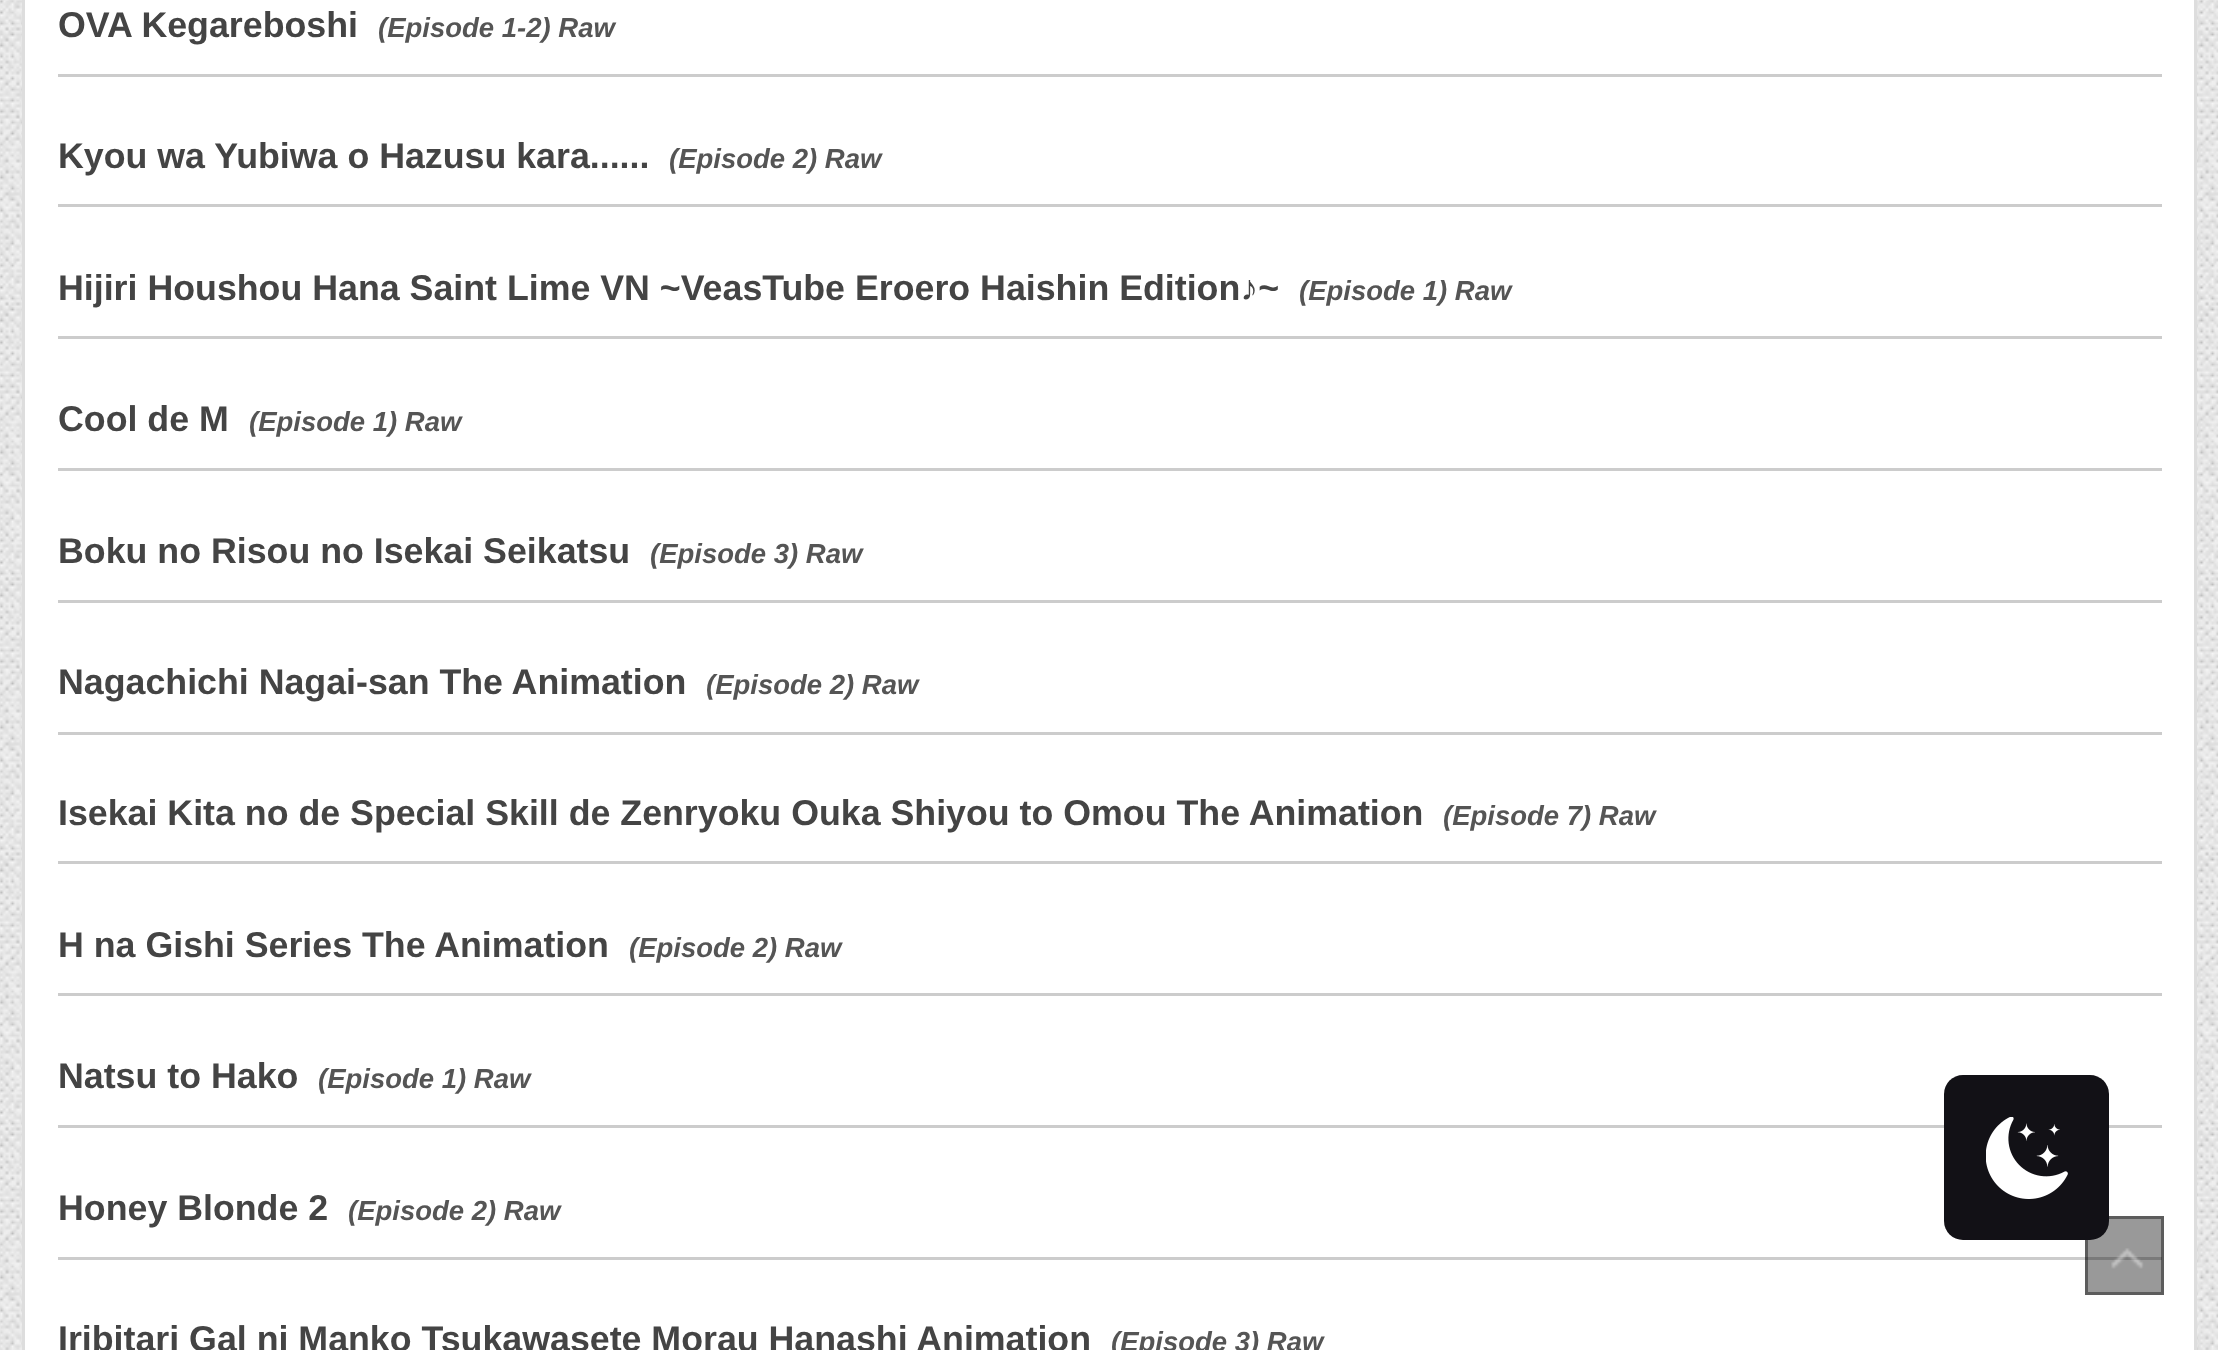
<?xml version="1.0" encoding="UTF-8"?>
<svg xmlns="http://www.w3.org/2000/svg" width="2218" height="1350">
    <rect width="100%" height="100%" fill="#FFFFFF"/>
    <image x="0" y="0" width="2218" height="1350" href="img_01.png"/>
    <rect x="23.5" y="-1.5" width="2172" height="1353" fill="#FFFFFF" stroke="#DDDDDD" stroke-width="3"/>
    <text x="58" y="37" font-family="Liberation Sans" font-size="35.75" font-weight="700" fill="#444444">OVA Kegareboshi</text>
    <text x="378" y="37" font-family="Liberation Sans" font-size="27.5" font-weight="700" font-style="italic" fill="#555555">(Episode 1-2) Raw</text>
    <rect x="58" y="74" width="2104" height="3" fill="#CCCCCC"/>
    <text x="58" y="168" font-family="Liberation Sans" font-size="35.75" font-weight="700" fill="#444444">Kyou wa Yubiwa o Hazusu kara......</text>
    <text x="669" y="168" font-family="Liberation Sans" font-size="27.5" font-weight="700" font-style="italic" fill="#555555">(Episode 2) Raw</text>
    <rect x="58" y="204" width="2104" height="3" fill="#CCCCCC"/>
    <text x="58" y="300" font-family="Liberation Sans" font-size="35.75" font-weight="700" fill="#444444">Hijiri Houshou Hana Saint Lime VN ~VeasTube Eroero Haishin Edition♪~</text>
    <text x="1299" y="300" font-family="Liberation Sans" font-size="27.5" font-weight="700" font-style="italic" fill="#555555">(Episode 1) Raw</text>
    <rect x="58" y="336" width="2104" height="3" fill="#CCCCCC"/>
    <text x="58" y="431" font-family="Liberation Sans" font-size="35.75" font-weight="700" fill="#444444">Cool de M</text>
    <text x="249" y="431" font-family="Liberation Sans" font-size="27.5" font-weight="700" font-style="italic" fill="#555555">(Episode 1) Raw</text>
    <rect x="58" y="468" width="2104" height="3" fill="#CCCCCC"/>
    <text x="58" y="563" font-family="Liberation Sans" font-size="35.75" font-weight="700" fill="#444444">Boku no Risou no Isekai Seikatsu</text>
    <text x="650" y="563" font-family="Liberation Sans" font-size="27.5" font-weight="700" font-style="italic" fill="#555555">(Episode 3) Raw</text>
    <rect x="58" y="600" width="2104" height="3" fill="#CCCCCC"/>
    <text x="58" y="694" font-family="Liberation Sans" font-size="35.75" font-weight="700" fill="#444444">Nagachichi Nagai-san The Animation</text>
    <text x="706" y="694" font-family="Liberation Sans" font-size="27.5" font-weight="700" font-style="italic" fill="#555555">(Episode 2) Raw</text>
    <rect x="58" y="732" width="2104" height="3" fill="#CCCCCC"/>
    <text x="58" y="825" font-family="Liberation Sans" font-size="35.75" font-weight="700" fill="#444444">Isekai Kita no de Special Skill de Zenryoku Ouka Shiyou to Omou The Animation</text>
    <text x="1443" y="825" font-family="Liberation Sans" font-size="27.5" font-weight="700" font-style="italic" fill="#555555">(Episode 7) Raw</text>
    <rect x="58" y="861" width="2104" height="3" fill="#CCCCCC"/>
    <text x="58" y="957" font-family="Liberation Sans" font-size="35.75" font-weight="700" fill="#444444">H na Gishi Series The Animation</text>
    <text x="629" y="957" font-family="Liberation Sans" font-size="27.5" font-weight="700" font-style="italic" fill="#555555">(Episode 2) Raw</text>
    <rect x="58" y="993" width="2104" height="3" fill="#CCCCCC"/>
    <text x="58" y="1088" font-family="Liberation Sans" font-size="35.75" font-weight="700" fill="#444444">Natsu to Hako</text>
    <text x="318" y="1088" font-family="Liberation Sans" font-size="27.5" font-weight="700" font-style="italic" fill="#555555">(Episode 1) Raw</text>
    <rect x="58" y="1125" width="2104" height="3" fill="#CCCCCC"/>
    <text x="58" y="1220" font-family="Liberation Sans" font-size="35.75" font-weight="700" fill="#444444">Honey Blonde 2</text>
    <text x="348" y="1220" font-family="Liberation Sans" font-size="27.5" font-weight="700" font-style="italic" fill="#555555">(Episode 2) Raw</text>
    <rect x="58" y="1257" width="2104" height="3" fill="#CCCCCC"/>
    <text x="58" y="1351" font-family="Liberation Sans" font-size="35.75" font-weight="700" fill="#444444">Iribitari Gal ni Manko Tsukawasete Morau Hanashi Animation</text>
    <text x="1111" y="1351" font-family="Liberation Sans" font-size="27.5" font-weight="700" font-style="italic" fill="#555555">(Episode 3) Raw</text>
    <rect x="2085" y="1216" width="79" height="79" fill="#000000" fill-opacity="0.4"/>
    <image x="2111" y="1248" width="33" height="21" href="img_03.png"/>
    <rect x="2086.5" y="1217.5" width="76" height="76" fill="none" stroke="#000000" stroke-opacity="0.4" stroke-width="3"/>
    <rect x="1944" y="1075" width="165" height="165" rx="19" fill="#121116"/>
    <image x="1986" y="1117" width="82" height="82" href="img_02.png"/>
</svg>
